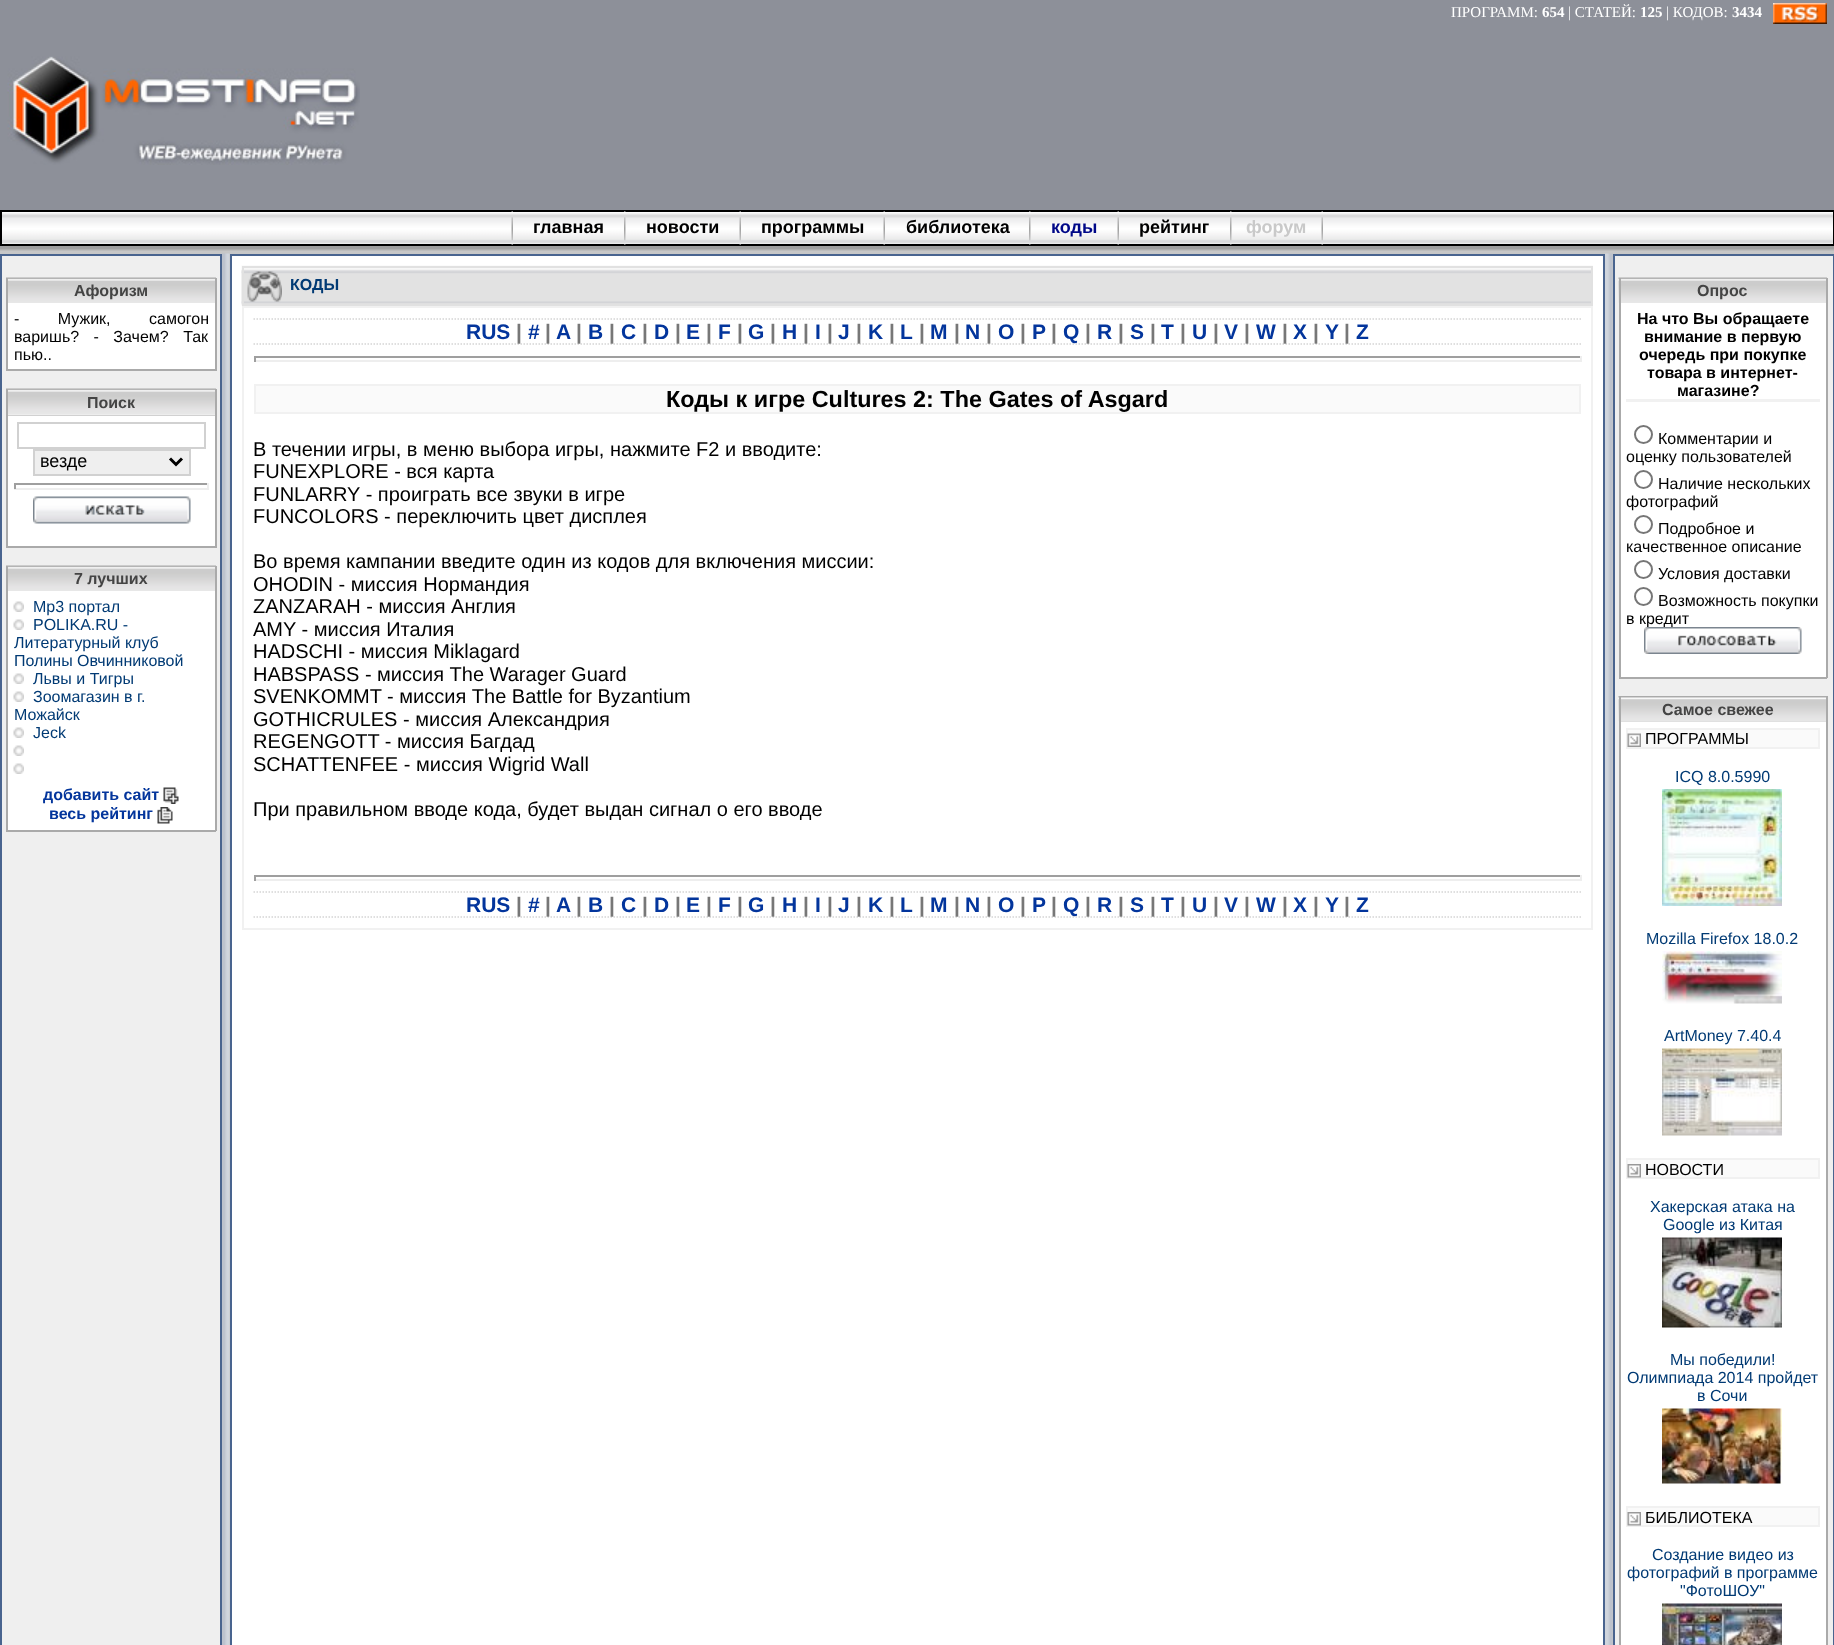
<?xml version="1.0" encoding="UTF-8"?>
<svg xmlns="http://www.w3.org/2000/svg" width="1834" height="1645">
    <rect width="100%" height="100%" fill="#FFFFFF"/>
    <rect x="0" y="0" width="441" height="210" fill="#8D9099"/>
    <image x="7" y="56" width="353" height="109" href="img_01.png"/>
    <rect x="441" y="0" width="1393" height="210" fill="#8D9099"/>
    <text x="1451" y="17" font-family="Liberation Serif" font-size="15" fill="#FFFFFF">ПРОГРАММ:</text>
    <text x="1542" y="17" font-family="Liberation Serif" font-size="15" font-weight="700" fill="#FFFFFF">654</text>
    <text x="1568" y="17" font-family="Liberation Serif" font-size="15" fill="#FFFFFF">| СТАТЕЙ:</text>
    <text x="1640" y="17" font-family="Liberation Serif" font-size="15" font-weight="700" fill="#FFFFFF">125</text>
    <text x="1666" y="17" font-family="Liberation Serif" font-size="15" fill="#FFFFFF">| КОДОВ:</text>
    <text x="1732" y="17" font-family="Liberation Serif" font-size="15" font-weight="700" fill="#FFFFFF">3434</text>
    <image x="1773" y="3" width="54" height="21" href="img_02.png"/>
    <image x="2" y="212" width="1831" height="32" href="img_03.png"/>
    <rect x="1" y="211" width="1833" height="34" fill="none" stroke="#000000" stroke-width="2"/>
    <image x="511" y="211" width="2" height="34" href="img_04.png"/>
    <text x="533" y="233" font-family="Liberation Sans" font-size="18" font-weight="700" fill="#000000">главная</text>
    <image x="624" y="211" width="2" height="34" href="img_05.png"/>
    <text x="646" y="233" font-family="Liberation Sans" font-size="18" font-weight="700" fill="#000000">новости</text>
    <image x="739" y="211" width="2" height="34" href="img_04.png"/>
    <text x="761" y="233" font-family="Liberation Sans" font-size="18" font-weight="700" fill="#000000">программы</text>
    <image x="883" y="211" width="2" height="34" href="img_06.png"/>
    <text x="906" y="233" font-family="Liberation Sans" font-size="18" font-weight="700" fill="#000000">библиотека</text>
    <image x="1029" y="211" width="2" height="34" href="img_07.png"/>
    <text x="1051" y="233" font-family="Liberation Sans" font-size="18" font-weight="700" fill="#000888">коды</text>
    <image x="1117" y="211" width="2" height="34" href="img_08.png"/>
    <text x="1139" y="233" font-family="Liberation Sans" font-size="18" font-weight="700" fill="#000000">рейтинг</text>
    <image x="1230" y="211" width="2" height="34" href="img_07.png"/>
    <text x="1246" y="233" font-family="Liberation Sans" font-size="18" font-weight="700" fill="#C9C9C9">форум</text>
    <image x="1321" y="211" width="2" height="34" href="img_06.png"/>
    <rect x="0" y="251" width="1834" height="3" fill="#C7C7C7"/>
    <image x="0" y="246" width="1834" height="5" href="img_09.png"/>
    <rect x="1" y="255" width="220" height="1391" fill="#EFEFEF" stroke="#49648F" stroke-width="2"/>
    <image x="6" y="277" width="210" height="26" href="img_10.png"/>
    <rect x="215" y="278" width="2" height="93" fill="#AAAAAA"/>
    <rect x="6" y="278" width="2" height="25" fill="#AAAAAA"/>
    <text x="74" y="296" font-family="Liberation Sans" font-size="16" font-weight="700" fill="#444444">Афоризм</text>
    <rect x="8" y="303" width="207" height="66" fill="#FFFFFF"/>
    <rect x="6" y="369" width="210" height="2" fill="#AAAAAA"/>
    <rect x="6" y="303" width="2" height="68" fill="#AAAAAA"/>
    <text font-family="Liberation Sans" font-size="16" fill="#000000">
        <tspan x="14" y="324" word-spacing="34">- Мужик, самогон</tspan>
        <tspan x="14" y="342" word-spacing="10">варишь? - Зачем? Так</tspan>
        <tspan x="14" y="360">пью..</tspan>
    </text>
    <rect x="8" y="415" width="207" height="1" fill="#D6D6D6"/>
    <image x="6" y="388" width="210" height="28" href="img_11.png"/>
    <rect x="215" y="389" width="2" height="159" fill="#AAAAAA"/>
    <rect x="6" y="389" width="2" height="27" fill="#AAAAAA"/>
    <text x="87" y="408" font-family="Liberation Sans" font-size="16" font-weight="700" fill="#444444">Поиск</text>
    <rect x="8" y="416" width="207" height="130" fill="#FFFFFF"/>
    <rect x="6" y="546" width="210" height="2" fill="#AAAAAA"/>
    <rect x="6" y="416" width="2" height="132" fill="#AAAAAA"/>
    <rect x="18" y="423" width="187" height="25" fill="none" stroke="#D1D1D1" stroke-width="2"/>
    <rect x="34" y="450" width="156" height="25" fill="#EFEFEF" stroke="#D1D1D1" stroke-width="2"/>
    <path d="M 170 458.5 L 176 464.5 L 182 458.5" fill="none" stroke="#000000" stroke-width="3"/>
    <text x="40" y="467" font-family="Liberation Sans" font-size="18" fill="#000000">везде</text>
    <rect x="14" y="483" width="195" height="2" fill="#9F9F9F"/>
    <rect x="207" y="483" width="2" height="6" fill="#EEEEEE"/>
    <rect x="14" y="488" width="195" height="2" fill="#EEEEEE"/>
    <rect x="14" y="483" width="2" height="6" fill="#9F9F9F"/>
    <image x="33" y="496" width="158" height="28" href="img_12.png"/>
    <image x="6" y="565" width="210" height="26" href="img_10.png"/>
    <rect x="215" y="566" width="2" height="265" fill="#AAAAAA"/>
    <rect x="6" y="566" width="2" height="25" fill="#AAAAAA"/>
    <text x="74" y="584" font-family="Liberation Sans" font-size="16" font-weight="700" fill="#444444">7 лучших</text>
    <rect x="8" y="591" width="207" height="239" fill="#FFFFFF"/>
    <rect x="6" y="830" width="210" height="2" fill="#AAAAAA"/>
    <rect x="6" y="591" width="2" height="240" fill="#AAAAAA"/>
    <image x="13" y="601" width="11" height="11" href="img_13.png"/>
    <text x="33" y="612" font-family="Liberation Sans" font-size="16" fill="#013A74">Мр3 портал</text>
    <image x="13" y="619" width="11" height="11" href="img_13.png"/>
    <text x="33" y="630" font-family="Liberation Sans" font-size="16" fill="#013A74">POLIKA.RU -</text>
    <text font-family="Liberation Sans" font-size="16" fill="#013A74">
        <tspan x="14" y="648">Литературный клуб</tspan>
        <tspan x="14" y="666">Полины Овчинниковой</tspan>
    </text>
    <image x="13" y="673" width="11" height="11" href="img_13.png"/>
    <text x="33" y="684" font-family="Liberation Sans" font-size="16" fill="#013A74">Львы и Тигры</text>
    <image x="13" y="691" width="11" height="11" href="img_13.png"/>
    <text x="33" y="702" font-family="Liberation Sans" font-size="16" fill="#013A74">Зоомагазин в г.</text>
    <text x="14" y="720" font-family="Liberation Sans" font-size="16" fill="#013A74">Можайск</text>
    <image x="13" y="727" width="11" height="11" href="img_13.png"/>
    <text x="33" y="738" font-family="Liberation Sans" font-size="16" fill="#013A74">Jeck</text>
    <image x="13" y="745" width="11" height="11" href="img_13.png"/>
    <image x="13" y="763" width="11" height="11" href="img_13.png"/>
    <text x="43" y="800" font-family="Liberation Sans" font-size="16" font-weight="700" fill="#03359C">добавить сайт</text>
    <image x="163" y="787" width="16" height="17" href="img_14.png"/>
    <text x="49" y="819" font-family="Liberation Sans" font-size="16" font-weight="700" fill="#03359C">весь рейтинг</text>
    <image x="157" y="807" width="16" height="17" href="img_15.png"/>
    <rect x="229" y="254" width="1" height="1391" fill="#C7C7C7"/>
    <image x="222" y="253" width="8" height="1392" href="img_16.png"/>
    <rect x="231" y="255" width="1373" height="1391" fill="none" stroke="#49648F" stroke-width="2"/>
    <image x="241" y="265" width="1352" height="41" href="img_17.png"/>
    <rect x="243" y="267" width="1349" height="38" fill="none" stroke="#E1E1E1" stroke-width="2"/>
    <image x="247" y="271" width="35" height="31" href="img_18.png"/>
    <text x="290" y="290" font-family="Liberation Sans" font-size="16" font-weight="700" fill="#013A74">КОДЫ</text>
    <rect x="243" y="307" width="1349" height="622" fill="none" stroke="#F1F1F1" stroke-width="2"/>
    <path d="M 253.5 319 H 1581" fill="none" stroke="#D5D5D5" stroke-width="1.5" stroke-dasharray="1.5 1.5"/>
    <path d="M 253.5 344 H 1581" fill="none" stroke="#D5D5D5" stroke-width="1.5" stroke-dasharray="1.5 1.5"/>
    <text x="466" y="339" font-family="Liberation Sans" font-size="21" font-weight="700" fill="#03359C">RUS</text>
    <text x="516" y="339" font-family="Liberation Sans" font-size="21" font-weight="700" fill="#777777">|</text>
    <text x="528" y="339" font-family="Liberation Sans" font-size="21" font-weight="700" fill="#03359C">#</text>
    <text x="545" y="339" font-family="Liberation Sans" font-size="21" font-weight="700" fill="#777777">|</text>
    <text x="556" y="339" font-family="Liberation Sans" font-size="21" font-weight="700" fill="#03359C">A</text>
    <text x="576" y="339" font-family="Liberation Sans" font-size="21" font-weight="700" fill="#777777">|</text>
    <text x="588" y="339" font-family="Liberation Sans" font-size="21" font-weight="700" fill="#03359C">B</text>
    <text x="609" y="339" font-family="Liberation Sans" font-size="21" font-weight="700" fill="#777777">|</text>
    <text x="621" y="339" font-family="Liberation Sans" font-size="21" font-weight="700" fill="#03359C">C</text>
    <text x="642" y="339" font-family="Liberation Sans" font-size="21" font-weight="700" fill="#777777">|</text>
    <text x="654" y="339" font-family="Liberation Sans" font-size="21" font-weight="700" fill="#03359C">D</text>
    <text x="675" y="339" font-family="Liberation Sans" font-size="21" font-weight="700" fill="#777777">|</text>
    <text x="686" y="339" font-family="Liberation Sans" font-size="21" font-weight="700" fill="#03359C">E</text>
    <text x="706" y="339" font-family="Liberation Sans" font-size="21" font-weight="700" fill="#777777">|</text>
    <text x="718" y="339" font-family="Liberation Sans" font-size="21" font-weight="700" fill="#03359C">F</text>
    <text x="737" y="339" font-family="Liberation Sans" font-size="21" font-weight="700" fill="#777777">|</text>
    <text x="748" y="339" font-family="Liberation Sans" font-size="21" font-weight="700" fill="#03359C">G</text>
    <text x="770" y="339" font-family="Liberation Sans" font-size="21" font-weight="700" fill="#777777">|</text>
    <text x="782" y="339" font-family="Liberation Sans" font-size="21" font-weight="700" fill="#03359C">H</text>
    <text x="803" y="339" font-family="Liberation Sans" font-size="21" font-weight="700" fill="#777777">|</text>
    <text x="815" y="339" font-family="Liberation Sans" font-size="21" font-weight="700" fill="#03359C">I</text>
    <text x="827" y="339" font-family="Liberation Sans" font-size="21" font-weight="700" fill="#777777">|</text>
    <text x="838" y="339" font-family="Liberation Sans" font-size="21" font-weight="700" fill="#03359C">J</text>
    <text x="856" y="339" font-family="Liberation Sans" font-size="21" font-weight="700" fill="#777777">|</text>
    <text x="868" y="339" font-family="Liberation Sans" font-size="21" font-weight="700" fill="#03359C">K</text>
    <text x="889" y="339" font-family="Liberation Sans" font-size="21" font-weight="700" fill="#777777">|</text>
    <text x="900" y="339" font-family="Liberation Sans" font-size="21" font-weight="700" fill="#03359C">L</text>
    <text x="919" y="339" font-family="Liberation Sans" font-size="21" font-weight="700" fill="#777777">|</text>
    <text x="930" y="339" font-family="Liberation Sans" font-size="21" font-weight="700" fill="#03359C">M</text>
    <text x="954" y="339" font-family="Liberation Sans" font-size="21" font-weight="700" fill="#777777">|</text>
    <text x="965" y="339" font-family="Liberation Sans" font-size="21" font-weight="700" fill="#03359C">N</text>
    <text x="986" y="339" font-family="Liberation Sans" font-size="21" font-weight="700" fill="#777777">|</text>
    <text x="998" y="339" font-family="Liberation Sans" font-size="21" font-weight="700" fill="#03359C">O</text>
    <text x="1020" y="339" font-family="Liberation Sans" font-size="21" font-weight="700" fill="#777777">|</text>
    <text x="1032" y="339" font-family="Liberation Sans" font-size="21" font-weight="700" fill="#03359C">P</text>
    <text x="1051" y="339" font-family="Liberation Sans" font-size="21" font-weight="700" fill="#777777">|</text>
    <text x="1063" y="339" font-family="Liberation Sans" font-size="21" font-weight="700" fill="#03359C">Q</text>
    <text x="1085" y="339" font-family="Liberation Sans" font-size="21" font-weight="700" fill="#777777">|</text>
    <text x="1097" y="339" font-family="Liberation Sans" font-size="21" font-weight="700" fill="#03359C">R</text>
    <text x="1118" y="339" font-family="Liberation Sans" font-size="21" font-weight="700" fill="#777777">|</text>
    <text x="1130" y="339" font-family="Liberation Sans" font-size="21" font-weight="700" fill="#03359C">S</text>
    <text x="1150" y="339" font-family="Liberation Sans" font-size="21" font-weight="700" fill="#777777">|</text>
    <text x="1161" y="339" font-family="Liberation Sans" font-size="21" font-weight="700" fill="#03359C">T</text>
    <text x="1180" y="339" font-family="Liberation Sans" font-size="21" font-weight="700" fill="#777777">|</text>
    <text x="1192" y="339" font-family="Liberation Sans" font-size="21" font-weight="700" fill="#03359C">U</text>
    <text x="1213" y="339" font-family="Liberation Sans" font-size="21" font-weight="700" fill="#777777">|</text>
    <text x="1224" y="339" font-family="Liberation Sans" font-size="21" font-weight="700" fill="#03359C">V</text>
    <text x="1244" y="339" font-family="Liberation Sans" font-size="21" font-weight="700" fill="#777777">|</text>
    <text x="1256" y="339" font-family="Liberation Sans" font-size="21" font-weight="700" fill="#03359C">W</text>
    <text x="1282" y="339" font-family="Liberation Sans" font-size="21" font-weight="700" fill="#777777">|</text>
    <text x="1293" y="339" font-family="Liberation Sans" font-size="21" font-weight="700" fill="#03359C">X</text>
    <text x="1313" y="339" font-family="Liberation Sans" font-size="21" font-weight="700" fill="#777777">|</text>
    <text x="1325" y="339" font-family="Liberation Sans" font-size="21" font-weight="700" fill="#03359C">Y</text>
    <text x="1344" y="339" font-family="Liberation Sans" font-size="21" font-weight="700" fill="#777777">|</text>
    <text x="1356" y="339" font-family="Liberation Sans" font-size="21" font-weight="700" fill="#03359C">Z</text>
    <rect x="254" y="356" width="1327" height="2" fill="#9F9F9F"/>
    <rect x="1580" y="356" width="2" height="6" fill="#EEEEEE"/>
    <rect x="254" y="360" width="1327" height="2" fill="#EEEEEE"/>
    <rect x="254" y="356" width="2" height="6" fill="#9F9F9F"/>
    <rect x="255" y="385" width="1325" height="28" fill="#FAFAFA" stroke="#F1F1F1" stroke-width="2"/>
    <text x="666" y="407" font-family="Liberation Sans" font-size="23.4" font-weight="700" fill="#000000">Коды к игре Cultures 2: The Gates of Asgard</text>
    <text font-family="Liberation Sans" font-size="20" fill="#000000">
        <tspan x="253" y="456">В течении игры, в меню выбора игры, нажмите F2 и вводите:</tspan>
        <tspan x="253" y="478">FUNEXPLORE - вся карта</tspan>
        <tspan x="253" y="501">FUNLARRY - проиграть все звуки в игре</tspan>
        <tspan x="253" y="523">FUNCOLORS - переключить цвет дисплея</tspan>
    </text>
    <text font-family="Liberation Sans" font-size="20" fill="#000000">
        <tspan x="253" y="568">Во время кампании введите один из кодов для включения миссии:</tspan>
        <tspan x="253" y="591">OHODIN - миссия Нормандия</tspan>
        <tspan x="253" y="613">ZANZARAH - миссия Англия</tspan>
        <tspan x="253" y="636">AMY - миссия Италия</tspan>
        <tspan x="253" y="658">HADSCHI - миссия Miklagard</tspan>
        <tspan x="253" y="681">HABSPASS - миссия The Warager Guard</tspan>
        <tspan x="253" y="703">SVENKOMMT - миссия The Battle for Byzantium</tspan>
        <tspan x="253" y="726">GOTHICRULES - миссия Александрия</tspan>
        <tspan x="253" y="748">REGENGOTT - миссия Багдад</tspan>
        <tspan x="253" y="771">SCHATTENFEE - миссия Wigrid Wall</tspan>
    </text>
    <text x="253" y="816" font-family="Liberation Sans" font-size="20" fill="#000000">При правильном вводе кода, будет выдан сигнал о его вводе</text>
    <rect x="254" y="875" width="1327" height="2" fill="#9F9F9F"/>
    <rect x="1580" y="875" width="2" height="6" fill="#EEEEEE"/>
    <rect x="254" y="879" width="1327" height="2" fill="#EEEEEE"/>
    <rect x="254" y="875" width="2" height="6" fill="#9F9F9F"/>
    <path d="M 253.5 892 H 1581" fill="none" stroke="#D5D5D5" stroke-width="1.5" stroke-dasharray="1.5 1.5"/>
    <path d="M 253.5 917 H 1581" fill="none" stroke="#D5D5D5" stroke-width="1.5" stroke-dasharray="1.5 1.5"/>
    <text x="466" y="912" font-family="Liberation Sans" font-size="21" font-weight="700" fill="#03359C">RUS</text>
    <text x="516" y="912" font-family="Liberation Sans" font-size="21" font-weight="700" fill="#777777">|</text>
    <text x="528" y="912" font-family="Liberation Sans" font-size="21" font-weight="700" fill="#03359C">#</text>
    <text x="545" y="912" font-family="Liberation Sans" font-size="21" font-weight="700" fill="#777777">|</text>
    <text x="556" y="912" font-family="Liberation Sans" font-size="21" font-weight="700" fill="#03359C">A</text>
    <text x="576" y="912" font-family="Liberation Sans" font-size="21" font-weight="700" fill="#777777">|</text>
    <text x="588" y="912" font-family="Liberation Sans" font-size="21" font-weight="700" fill="#03359C">B</text>
    <text x="609" y="912" font-family="Liberation Sans" font-size="21" font-weight="700" fill="#777777">|</text>
    <text x="621" y="912" font-family="Liberation Sans" font-size="21" font-weight="700" fill="#03359C">C</text>
    <text x="642" y="912" font-family="Liberation Sans" font-size="21" font-weight="700" fill="#777777">|</text>
    <text x="654" y="912" font-family="Liberation Sans" font-size="21" font-weight="700" fill="#03359C">D</text>
    <text x="675" y="912" font-family="Liberation Sans" font-size="21" font-weight="700" fill="#777777">|</text>
    <text x="686" y="912" font-family="Liberation Sans" font-size="21" font-weight="700" fill="#03359C">E</text>
    <text x="706" y="912" font-family="Liberation Sans" font-size="21" font-weight="700" fill="#777777">|</text>
    <text x="718" y="912" font-family="Liberation Sans" font-size="21" font-weight="700" fill="#03359C">F</text>
    <text x="737" y="912" font-family="Liberation Sans" font-size="21" font-weight="700" fill="#777777">|</text>
    <text x="748" y="912" font-family="Liberation Sans" font-size="21" font-weight="700" fill="#03359C">G</text>
    <text x="770" y="912" font-family="Liberation Sans" font-size="21" font-weight="700" fill="#777777">|</text>
    <text x="782" y="912" font-family="Liberation Sans" font-size="21" font-weight="700" fill="#03359C">H</text>
    <text x="803" y="912" font-family="Liberation Sans" font-size="21" font-weight="700" fill="#777777">|</text>
    <text x="815" y="912" font-family="Liberation Sans" font-size="21" font-weight="700" fill="#03359C">I</text>
    <text x="827" y="912" font-family="Liberation Sans" font-size="21" font-weight="700" fill="#777777">|</text>
    <text x="838" y="912" font-family="Liberation Sans" font-size="21" font-weight="700" fill="#03359C">J</text>
    <text x="856" y="912" font-family="Liberation Sans" font-size="21" font-weight="700" fill="#777777">|</text>
    <text x="868" y="912" font-family="Liberation Sans" font-size="21" font-weight="700" fill="#03359C">K</text>
    <text x="889" y="912" font-family="Liberation Sans" font-size="21" font-weight="700" fill="#777777">|</text>
    <text x="900" y="912" font-family="Liberation Sans" font-size="21" font-weight="700" fill="#03359C">L</text>
    <text x="919" y="912" font-family="Liberation Sans" font-size="21" font-weight="700" fill="#777777">|</text>
    <text x="930" y="912" font-family="Liberation Sans" font-size="21" font-weight="700" fill="#03359C">M</text>
    <text x="954" y="912" font-family="Liberation Sans" font-size="21" font-weight="700" fill="#777777">|</text>
    <text x="965" y="912" font-family="Liberation Sans" font-size="21" font-weight="700" fill="#03359C">N</text>
    <text x="986" y="912" font-family="Liberation Sans" font-size="21" font-weight="700" fill="#777777">|</text>
    <text x="998" y="912" font-family="Liberation Sans" font-size="21" font-weight="700" fill="#03359C">O</text>
    <text x="1020" y="912" font-family="Liberation Sans" font-size="21" font-weight="700" fill="#777777">|</text>
    <text x="1032" y="912" font-family="Liberation Sans" font-size="21" font-weight="700" fill="#03359C">P</text>
    <text x="1051" y="912" font-family="Liberation Sans" font-size="21" font-weight="700" fill="#777777">|</text>
    <text x="1063" y="912" font-family="Liberation Sans" font-size="21" font-weight="700" fill="#03359C">Q</text>
    <text x="1085" y="912" font-family="Liberation Sans" font-size="21" font-weight="700" fill="#777777">|</text>
    <text x="1097" y="912" font-family="Liberation Sans" font-size="21" font-weight="700" fill="#03359C">R</text>
    <text x="1118" y="912" font-family="Liberation Sans" font-size="21" font-weight="700" fill="#777777">|</text>
    <text x="1130" y="912" font-family="Liberation Sans" font-size="21" font-weight="700" fill="#03359C">S</text>
    <text x="1150" y="912" font-family="Liberation Sans" font-size="21" font-weight="700" fill="#777777">|</text>
    <text x="1161" y="912" font-family="Liberation Sans" font-size="21" font-weight="700" fill="#03359C">T</text>
    <text x="1180" y="912" font-family="Liberation Sans" font-size="21" font-weight="700" fill="#777777">|</text>
    <text x="1192" y="912" font-family="Liberation Sans" font-size="21" font-weight="700" fill="#03359C">U</text>
    <text x="1213" y="912" font-family="Liberation Sans" font-size="21" font-weight="700" fill="#777777">|</text>
    <text x="1224" y="912" font-family="Liberation Sans" font-size="21" font-weight="700" fill="#03359C">V</text>
    <text x="1244" y="912" font-family="Liberation Sans" font-size="21" font-weight="700" fill="#777777">|</text>
    <text x="1256" y="912" font-family="Liberation Sans" font-size="21" font-weight="700" fill="#03359C">W</text>
    <text x="1282" y="912" font-family="Liberation Sans" font-size="21" font-weight="700" fill="#777777">|</text>
    <text x="1293" y="912" font-family="Liberation Sans" font-size="21" font-weight="700" fill="#03359C">X</text>
    <text x="1313" y="912" font-family="Liberation Sans" font-size="21" font-weight="700" fill="#777777">|</text>
    <text x="1325" y="912" font-family="Liberation Sans" font-size="21" font-weight="700" fill="#03359C">Y</text>
    <text x="1344" y="912" font-family="Liberation Sans" font-size="21" font-weight="700" fill="#777777">|</text>
    <text x="1356" y="912" font-family="Liberation Sans" font-size="21" font-weight="700" fill="#03359C">Z</text>
    <rect x="1612" y="254" width="1" height="1391" fill="#C7C7C7"/>
    <image x="1605" y="253" width="8" height="1392" href="img_19.png"/>
    <rect x="1614" y="255" width="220" height="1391" fill="#EFEFEF" stroke="#49648F" stroke-width="2"/>
    <image x="1618" y="277" width="209" height="26" href="img_20.png"/>
    <rect x="1826" y="278" width="2" height="400" fill="#AAAAAA"/>
    <rect x="1619" y="278" width="2" height="25" fill="#AAAAAA"/>
    <text x="1697" y="296" font-family="Liberation Sans" font-size="16" font-weight="700" fill="#444444">Опрос</text>
    <rect x="1621" y="303" width="205" height="374" fill="#FFFFFF"/>
    <rect x="1619" y="677" width="208" height="2" fill="#AAAAAA"/>
    <rect x="1619" y="303" width="2" height="375" fill="#AAAAAA"/>
    <text x="1637" y="324" font-family="Liberation Sans" font-size="16" font-weight="700" fill="#000000">На что Вы обращаете</text>
    <text x="1644" y="342" font-family="Liberation Sans" font-size="16" font-weight="700" fill="#000000">внимание в первую</text>
    <text x="1639" y="360" font-family="Liberation Sans" font-size="16" font-weight="700" fill="#000000">очередь при покупке</text>
    <text x="1647" y="378" font-family="Liberation Sans" font-size="16" font-weight="700" fill="#000000">товара в интернет-</text>
    <text x="1677" y="396" font-family="Liberation Sans" font-size="16" font-weight="700" fill="#000000">магазине?</text>
    <rect x="1626" y="399" width="194" height="3" fill="#F1F1F1"/>
    <circle cx="1643.5" cy="434.5" r="8.5" fill="none" stroke="#767676" stroke-width="2"/>
    <text x="1658" y="444" font-family="Liberation Sans" font-size="16" fill="#000000">Комментарии и</text>
    <text x="1626" y="462" font-family="Liberation Sans" font-size="16" fill="#000000">оценку пользователей</text>
    <circle cx="1643.5" cy="479.5" r="8.5" fill="none" stroke="#767676" stroke-width="2"/>
    <text x="1658" y="489" font-family="Liberation Sans" font-size="16" fill="#000000">Наличие нескольких</text>
    <text x="1626" y="507" font-family="Liberation Sans" font-size="16" fill="#000000">фотографий</text>
    <circle cx="1643.5" cy="524.5" r="8.5" fill="none" stroke="#767676" stroke-width="2"/>
    <text x="1658" y="534" font-family="Liberation Sans" font-size="16" fill="#000000">Подробное и</text>
    <text x="1626" y="552" font-family="Liberation Sans" font-size="16" fill="#000000">качественное описание</text>
    <circle cx="1643.5" cy="569.5" r="8.5" fill="none" stroke="#767676" stroke-width="2"/>
    <text x="1658" y="579" font-family="Liberation Sans" font-size="16" fill="#000000">Условия доставки</text>
    <circle cx="1643.5" cy="596.5" r="8.5" fill="none" stroke="#767676" stroke-width="2"/>
    <text x="1658" y="606" font-family="Liberation Sans" font-size="16" fill="#000000">Возможность покупки</text>
    <text x="1626" y="624" font-family="Liberation Sans" font-size="16" fill="#000000">в кредит</text>
    <image x="1644" y="627" width="158" height="27" href="img_21.png"/>
    <rect x="1621" y="721" width="205" height="1" fill="#D6D6D6"/>
    <image x="1618" y="696" width="208" height="26" href="img_22.png"/>
    <rect x="1826" y="696" width="2" height="949" fill="#AAAAAA"/>
    <rect x="1619" y="696" width="2" height="949" fill="#AAAAAA"/>
    <text x="1662" y="715" font-family="Liberation Sans" font-size="16" font-weight="700" fill="#444444">Самое свежее</text>
    <rect x="1621" y="722" width="205" height="923" fill="#FFFFFF"/>
    <rect x="1627" y="729" width="192" height="19" fill="#FAFAFA" stroke="#F1F1F1" stroke-width="2"/>
    <image x="1627" y="733" width="14" height="14" href="img_23.png"/>
    <text x="1645" y="744" font-family="Liberation Sans" font-size="16" fill="#000000">ПРОГРАММЫ</text>
    <text x="1675" y="782" font-family="Liberation Sans" font-size="16" fill="#013A74">ICQ 8.0.5990</text>
    <image x="1662" y="789" width="120" height="117" href="img_24.png"/>
    <text x="1646" y="944" font-family="Liberation Sans" font-size="16" fill="#013A74">Mozilla Firefox 18.0.2</text>
    <image x="1662" y="951" width="120" height="53" href="img_25.png"/>
    <text x="1664" y="1041" font-family="Liberation Sans" font-size="16" fill="#013A74">ArtMoney 7.40.4</text>
    <image x="1662" y="1048" width="120" height="88" href="img_26.png"/>
    <rect x="1627" y="1159" width="192" height="19" fill="#FAFAFA" stroke="#F1F1F1" stroke-width="2"/>
    <image x="1627" y="1164" width="14" height="14" href="img_27.png"/>
    <text x="1645" y="1175" font-family="Liberation Sans" font-size="16" fill="#000000">НОВОСТИ</text>
    <text x="1650" y="1212" font-family="Liberation Sans" font-size="16" fill="#013A74">Хакерская атака на</text>
    <text x="1663" y="1230" font-family="Liberation Sans" font-size="16" fill="#013A74">Google из Китая</text>
    <image x="1662" y="1237" width="120" height="91" href="img_28.png"/>
    <text x="1670" y="1365" font-family="Liberation Sans" font-size="16" fill="#013A74">Мы победили!</text>
    <text x="1627" y="1383" font-family="Liberation Sans" font-size="16" fill="#013A74">Олимпиада 2014 пройдет</text>
    <text x="1697" y="1401" font-family="Liberation Sans" font-size="16" fill="#013A74">в Сочи</text>
    <image x="1662" y="1408" width="120" height="76" href="img_29.png"/>
    <rect x="1627" y="1507" width="192" height="19" fill="#FAFAFA" stroke="#F1F1F1" stroke-width="2"/>
    <image x="1627" y="1512" width="14" height="14" href="img_27.png"/>
    <text x="1645" y="1523" font-family="Liberation Sans" font-size="16" fill="#000000">БИБЛИОТЕКА</text>
    <text x="1652" y="1560" font-family="Liberation Sans" font-size="16" fill="#013A74">Создание видео из</text>
    <text x="1627" y="1578" font-family="Liberation Sans" font-size="16" fill="#013A74">фотографий в программе</text>
    <text x="1680" y="1596" font-family="Liberation Sans" font-size="16" fill="#013A74">"ФотоШОУ"</text>
    <image x="1662" y="1603" width="120" height="42" href="img_30.png"/>
</svg>
